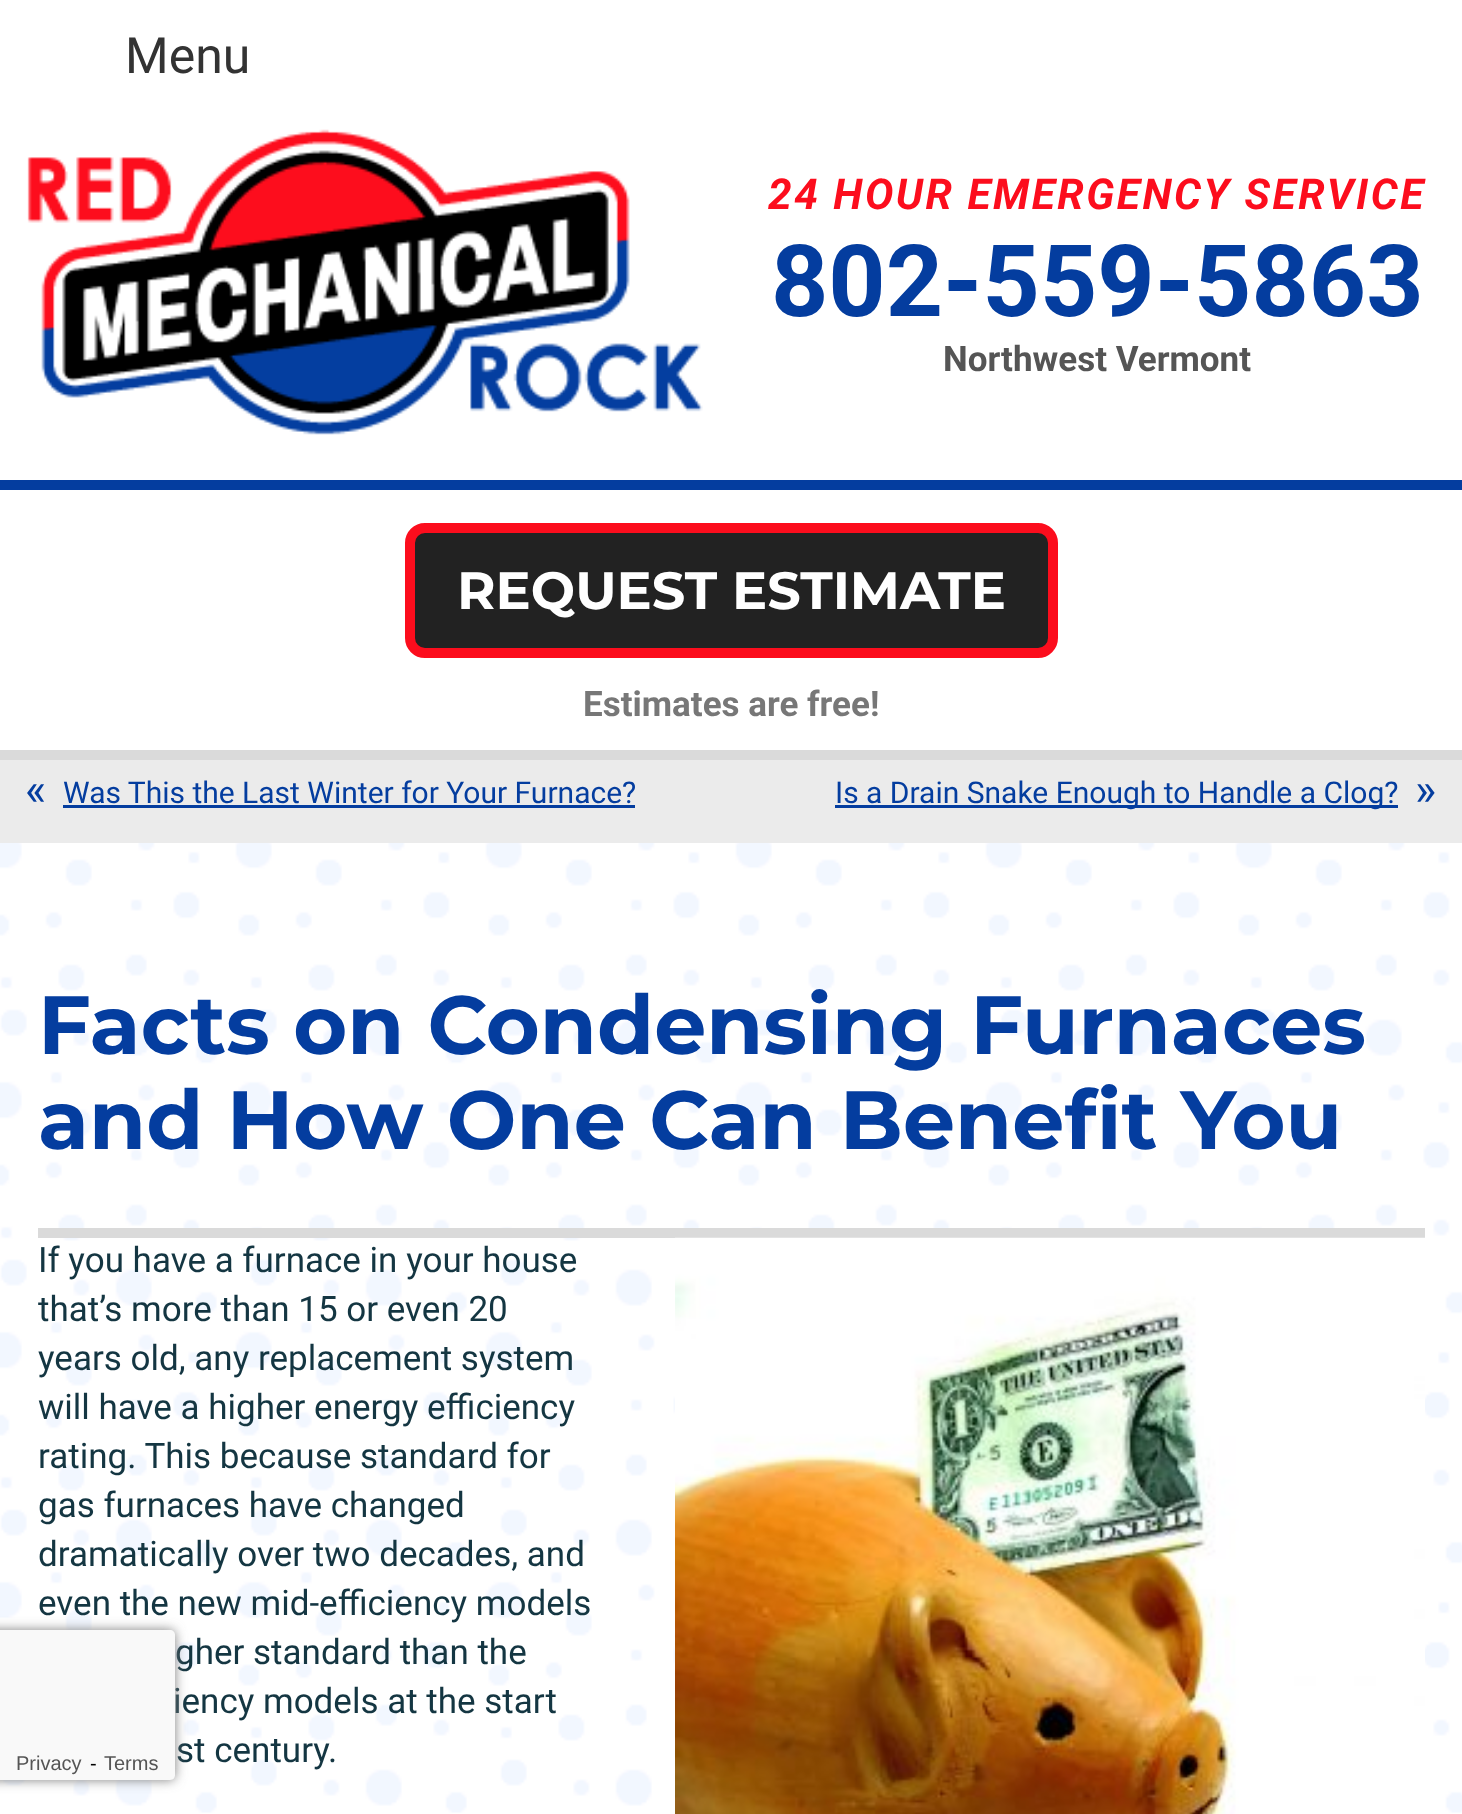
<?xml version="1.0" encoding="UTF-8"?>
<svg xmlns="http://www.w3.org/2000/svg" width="1462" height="1814">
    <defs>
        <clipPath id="clip1"><rect x="38" y="1238" width="1387" height="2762"/></clipPath>
        <filter id="blur1" x="-50%" y="-200%" width="200%" height="500%"><feGaussianBlur stdDeviation="6"/></filter>
        <clipPath id="clip2"><rect x="-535" y="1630" width="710" height="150" rx="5"/></clipPath>
        <filter id="blur2" x="-50%" y="-200%" width="200%" height="500%"><feGaussianBlur stdDeviation="5"/></filter>
    </defs>
    <rect width="100%" height="100%" fill="#FFFFFF"/>
    <text x="125" y="73" font-family="Roboto" font-size="50" fill="#333333">Menu</text>
    <rect x="0" y="750" width="1462" height="10" fill="#DADADA"/>
    <image x="27" y="129" width="676" height="306" href="img_01.png"/>
    <text x="768" y="209" font-family="Roboto" font-size="42.5" font-weight="700" font-style="italic" letter-spacing="2.5" fill="#FC0D1D">24 HOUR EMERGENCY SERVICE</text>
    <text x="771" y="316" font-family="Roboto" font-size="100" font-weight="700" fill="#043D9F">802-559-5863</text>
    <text x="943" y="371" font-family="Roboto" font-size="35" font-weight="700" fill="#555555">Northwest Vermont</text>
    <rect x="0" y="480" width="1462" height="10" fill="#043D9F"/>
    <rect x="410" y="528" width="643" height="125" rx="15" fill="#222222" stroke="#FC0D1D" stroke-width="10"/>
    <text x="457" y="609" font-family="Montserrat" font-size="52.5" font-weight="100" fill="#FFFFFF">REQUEST ESTIMATE</text>
    <text x="583" y="716" font-family="Roboto" font-size="35" font-weight="700" fill="#777777">Estimates are free!</text>
    <image x="0" y="843" width="1462" height="970" href="img_02.png"/>
    <rect x="0" y="760" width="1462" height="83" fill="#EBEBEB"/>
    <text x="25" y="805" font-family="Roboto" font-size="45" fill="#043D9F">«</text>
    <text x="63" y="803" font-family="Roboto" font-size="30" fill="#043D9F">Was This the Last Winter for Your Furnace?</text>
    <rect x="63" y="805" width="572" height="3" fill="#043D9F"/>
    <rect x="835" y="805" width="563" height="3" fill="#043D9F"/>
    <text x="835" y="803" font-family="Roboto" font-size="30" fill="#043D9F">Is a Drain Snake Enough to Handle a Clog?</text>
    <text x="1415" y="805" font-family="Roboto" font-size="45" fill="#043D9F">»</text>
    <text font-family="Montserrat" font-size="82.5" font-weight="100" fill="#043D9F">
        <tspan x="38" y="1054">Facts on Condensing Furnaces</tspan>
        <tspan x="38" y="1149">and How One Can Benefit You</tspan>
    </text>
    <rect x="38" y="1228" width="1387" height="10" fill="#DADADA"/>
    <text x="38" y="1272" font-family="Roboto" font-size="35" fill="#143642">If you have a furnace in your house</text>
    <image x="675" y="1237" width="750" height="577" href="img_03.png"/>
    <g clip-path="url(#clip1)">
        <text x="38" y="1321" font-family="Roboto" font-size="35" fill="#143642">that’s more than 15 or even 20</text>
    </g>
    <text font-family="Roboto" font-size="35" fill="#143642">
        <tspan x="38" y="1370">years old, any replacement system</tspan>
        <tspan x="38" y="1419">will have a higher energy efficiency</tspan>
        <tspan x="38" y="1468">rating. This because standard for</tspan>
        <tspan x="38" y="1517">gas furnaces have changed</tspan>
        <tspan x="38" y="1566">dramatically over two decades, and</tspan>
        <tspan x="38" y="1615">even the new mid-efficiency models</tspan>
    </text>
    <text x="175" y="1664" font-family="Roboto" font-size="35" fill="#143642">gher standard than the</text>
    <text x="173" y="1713" font-family="Roboto" font-size="35" fill="#143642">iency models at the start</text>
    <text x="176" y="1762" font-family="Roboto" font-size="35" fill="#143642">st century.</text>
    <rect x="-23" y="1630" width="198" height="150" rx="5" fill="#808080" filter="url(#blur1)"/>
    <g clip-path="url(#clip2)">
        <rect x="-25" y="1628" width="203" height="155" rx="10" fill="#000000" fill-opacity="0.08" filter="url(#blur2)"/>
    </g>
    <path d="M 0 1630 H 170 C 173 1630 175 1632 175 1635 V 1775 C 175 1778 173 1780 170 1780 H 0 Z" fill="#F9F9F9"/>
    <text x="16" y="1770" font-family="Liberation Sans" font-size="20" fill="#555555">Privacy</text>
    <text x="90" y="1770" font-family="Liberation Sans" font-size="20" fill="#000000">-</text>
    <text x="104" y="1770" font-family="Liberation Sans" font-size="20" fill="#555555">Terms</text>
</svg>
